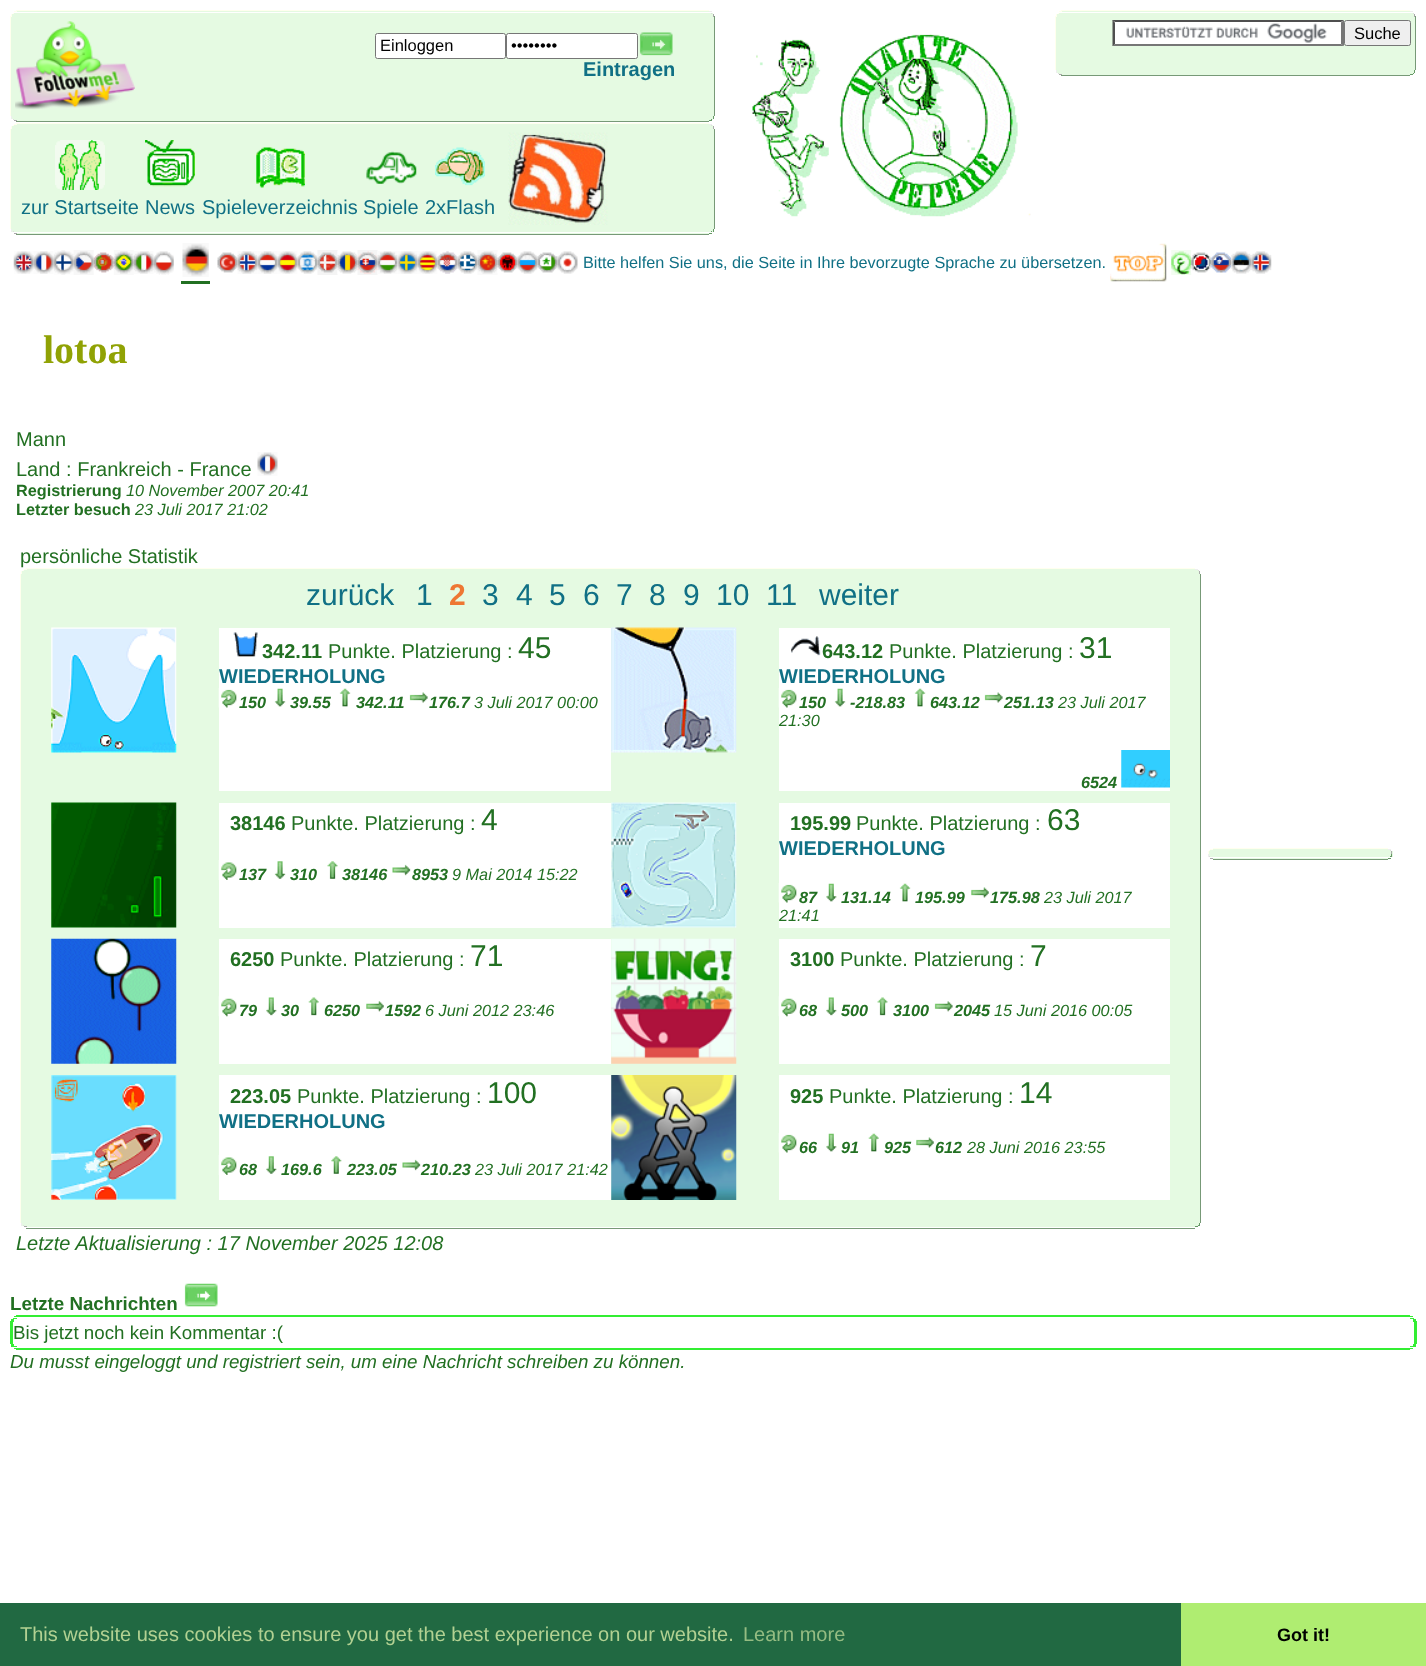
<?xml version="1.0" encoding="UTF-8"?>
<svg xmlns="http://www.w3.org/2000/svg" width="1426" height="1666">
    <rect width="100%" height="100%" fill="#FFFFFF"/>
    <rect x="16" y="10" width="693" height="1" fill="#FFFFEE"/>
    <rect x="14" y="11" width="697" height="1" fill="#E5FAE2"/>
    <rect x="709" y="11" width="3" height="1" fill="#EEEEEE"/>
    <rect x="14" y="11" width="3" height="1" fill="#FFFFEE"/>
    <rect x="13" y="13" width="700" height="1" fill="#E5FAE2"/>
    <rect x="711" y="13" width="1" height="1" fill="#DDDDDD"/>
    <rect x="13" y="13" width="1" height="1" fill="#FFFFEE"/>
    <rect x="11" y="14" width="703" height="3" fill="#E5FAE2"/>
    <rect x="713" y="14" width="1" height="3" fill="#AAAAAA"/>
    <rect x="11" y="14" width="1" height="3" fill="#FFFFEE"/>
    <rect x="11" y="17" width="703" height="99" fill="#E5FAE2"/>
    <rect x="714" y="16" width="1" height="100" fill="#779977"/>
    <rect x="10" y="16" width="1" height="100" fill="#FFFFEE"/>
    <image x="15" y="21" width="120" height="89" href="img_01.png"/>
    <rect x="375.5" y="33.5" width="130" height="25" rx="2" fill="#FFFFFF" stroke="#767676"/>
    <text x="380" y="51" font-family="Liberation Sans" font-size="16.5" fill="#000000">Einloggen</text>
    <rect x="506.5" y="33.5" width="131" height="25" rx="2" fill="#FFFFFF" stroke="#767676"/>
    <text x="511" y="51" font-family="Liberation Sans" font-size="16.5" fill="#000000">••••••••</text>
    <image x="639" y="32" width="34" height="24" href="img_02.png"/>
    <text x="583" y="76" font-family="Liberation Sans" font-size="20" font-weight="700" fill="#107085">Eintragen</text>
    <rect x="11" y="116" width="703" height="3" fill="#E5FAE2"/>
    <rect x="713" y="116" width="1" height="3" fill="#669966"/>
    <rect x="11" y="116" width="1" height="3" fill="#EEEEEE"/>
    <rect x="13" y="119" width="700" height="1" fill="#E5FAE2"/>
    <rect x="711" y="119" width="1" height="1" fill="#669966"/>
    <rect x="13" y="119" width="1" height="1" fill="#DDDDDD"/>
    <rect x="14" y="120" width="697" height="1" fill="#E5FAE2"/>
    <rect x="709" y="120" width="3" height="1" fill="#669966"/>
    <rect x="14" y="120" width="3" height="1" fill="#AAAAAA"/>
    <rect x="16" y="121" width="693" height="1" fill="#779977"/>
    <rect x="16" y="123" width="693" height="1" fill="#FFFFEE"/>
    <rect x="14" y="124" width="697" height="1" fill="#E5FAE2"/>
    <rect x="709" y="124" width="3" height="1" fill="#EEEEEE"/>
    <rect x="14" y="124" width="3" height="1" fill="#FFFFEE"/>
    <rect x="13" y="125" width="700" height="1" fill="#E5FAE2"/>
    <rect x="711" y="125" width="1" height="1" fill="#DDDDDD"/>
    <rect x="13" y="125" width="1" height="1" fill="#FFFFEE"/>
    <rect x="11" y="126" width="703" height="3" fill="#E5FAE2"/>
    <rect x="713" y="126" width="1" height="3" fill="#AAAAAA"/>
    <rect x="11" y="126" width="1" height="3" fill="#FFFFEE"/>
    <rect x="11" y="129" width="703" height="100" fill="#E5FAE2"/>
    <rect x="714" y="129" width="1" height="100" fill="#779977"/>
    <rect x="10" y="129" width="1" height="100" fill="#FFFFEE"/>
    <image x="55" y="140" width="50" height="50" href="img_03.png"/>
    <image x="145" y="140" width="50" height="47" href="img_04.png"/>
    <image x="256" y="147" width="49" height="41" href="img_05.png"/>
    <image x="366" y="151" width="51" height="33" href="img_06.png"/>
    <image x="435" y="147" width="50" height="39" href="img_07.png"/>
    <text x="21" y="214" font-family="Liberation Sans" font-size="20" fill="#107085">zur Startseite</text>
    <text x="145" y="214" font-family="Liberation Sans" font-size="20" fill="#107085">News</text>
    <text x="202" y="214" font-family="Liberation Sans" font-size="20" fill="#107085">Spieleverzeichnis</text>
    <text x="363" y="214" font-family="Liberation Sans" font-size="20" fill="#107085">Spiele</text>
    <text x="425" y="214" font-family="Liberation Sans" font-size="20" fill="#107085">2xFlash</text>
    <image x="508" y="132" width="100" height="93" href="img_08.png"/>
    <rect x="11" y="229" width="703" height="3" fill="#E5FAE2"/>
    <rect x="713" y="229" width="1" height="3" fill="#669966"/>
    <rect x="11" y="229" width="1" height="3" fill="#EEEEEE"/>
    <rect x="711" y="231" width="1" height="1" fill="#669966"/>
    <rect x="13" y="231" width="1" height="1" fill="#DDDDDD"/>
    <rect x="14" y="233" width="697" height="1" fill="#E5FAE2"/>
    <rect x="709" y="233" width="3" height="1" fill="#669966"/>
    <rect x="14" y="233" width="3" height="1" fill="#AAAAAA"/>
    <rect x="16" y="234" width="693" height="1" fill="#779977"/>
    <image x="752" y="33" width="279" height="184" href="img_09.png"/>
    <rect x="1061" y="10" width="349" height="1" fill="#FFFFEE"/>
    <rect x="1059" y="11" width="354" height="1" fill="#E5FAE2"/>
    <rect x="1410" y="11" width="3" height="1" fill="#EEEEEE"/>
    <rect x="1059" y="11" width="3" height="1" fill="#FFFFEE"/>
    <rect x="1058" y="13" width="356" height="1" fill="#E5FAE2"/>
    <rect x="1413" y="13" width="1" height="1" fill="#DDDDDD"/>
    <rect x="1058" y="13" width="1" height="1" fill="#FFFFEE"/>
    <rect x="1056" y="14" width="359" height="3" fill="#E5FAE2"/>
    <rect x="1414" y="14" width="1" height="3" fill="#AAAAAA"/>
    <rect x="1056" y="14" width="1" height="3" fill="#FFFFEE"/>
    <rect x="1056" y="17" width="359" height="53" fill="#E5FAE2"/>
    <rect x="1415" y="16" width="1" height="54" fill="#779977"/>
    <rect x="1055" y="16" width="1" height="54" fill="#FFFFEE"/>
    <rect x="1113" y="20" width="231" height="26" fill="#FFFFFF"/>
    <image x="1126" y="23" width="201" height="20" href="img_10.png"/>
    <path d="M 1112 20 H 1344 L 1341 22 H 1115 Z" fill="#4F4F4F"/>
    <path d="M 1344 20 V 46 L 1341 44 V 22.5 Z" fill="#767676"/>
    <path d="M 1344 46 H 1112 L 1115 44 H 1341 Z" fill="#767676"/>
    <path d="M 1112.5 46 V 20 L 1115 22.5 V 44 Z" fill="#4F4F4F"/>
    <rect x="1344.5" y="20.5" width="66" height="25" rx="2" fill="#EFEFEF" stroke="#767676"/>
    <text x="1354" y="39" font-family="Liberation Sans" font-size="16.5" fill="#000000">Suche</text>
    <rect x="1056" y="70" width="359" height="3" fill="#E5FAE2"/>
    <rect x="1414" y="70" width="1" height="3" fill="#669966"/>
    <rect x="1056" y="70" width="1" height="3" fill="#EEEEEE"/>
    <rect x="1058" y="73" width="356" height="1" fill="#E5FAE2"/>
    <rect x="1413" y="73" width="1" height="1" fill="#669966"/>
    <rect x="1058" y="73" width="1" height="1" fill="#DDDDDD"/>
    <rect x="1059" y="74" width="354" height="1" fill="#E5FAE2"/>
    <rect x="1410" y="74" width="3" height="1" fill="#669966"/>
    <rect x="1059" y="74" width="3" height="1" fill="#AAAAAA"/>
    <rect x="1061" y="75" width="349" height="1" fill="#779977"/>
    <image x="13" y="251" width="21" height="23" href="img_11.png"/>
    <image x="33" y="251" width="21" height="23" href="img_12.png"/>
    <image x="53" y="250" width="21" height="25" href="img_13.png"/>
    <image x="73" y="250" width="21" height="25" href="img_14.png"/>
    <image x="93" y="252" width="21" height="21" href="img_15.png"/>
    <image x="113" y="250" width="21" height="25" href="img_16.png"/>
    <image x="133" y="251" width="21" height="23" href="img_17.png"/>
    <image x="153" y="251" width="21" height="24" href="img_18.png"/>
    <image x="182" y="243" width="27" height="34" href="img_19.png"/>
    <rect x="181" y="281" width="29" height="3" fill="#227022"/>
    <image x="217" y="252" width="21" height="21" href="img_20.png"/>
    <image x="237" y="251" width="21" height="23" href="img_21.png"/>
    <image x="257" y="251" width="21" height="23" href="img_22.png"/>
    <image x="277" y="251" width="21" height="23" href="img_23.png"/>
    <image x="297" y="251" width="21" height="23" href="img_24.png"/>
    <image x="317" y="250" width="21" height="25" href="img_25.png"/>
    <image x="337" y="251" width="21" height="23" href="img_26.png"/>
    <image x="357" y="250" width="21" height="25" href="img_27.png"/>
    <image x="377" y="251" width="21" height="23" href="img_28.png"/>
    <image x="397" y="251" width="21" height="23" href="img_29.png"/>
    <image x="417" y="251" width="21" height="23" href="img_30.png"/>
    <image x="437" y="251" width="21" height="23" href="img_31.png"/>
    <image x="457" y="251" width="21" height="23" href="img_32.png"/>
    <image x="477" y="250" width="21" height="25" href="img_33.png"/>
    <image x="497" y="252" width="21" height="21" href="img_34.png"/>
    <image x="517" y="251" width="21" height="23" href="img_35.png"/>
    <image x="537" y="252" width="21" height="21" href="img_36.png"/>
    <image x="557" y="251" width="21" height="23" href="img_37.png"/>
    <text x="583" y="268" font-family="Liberation Sans" font-size="16.25" fill="#107085">Bitte helfen Sie uns, die Seite in Ihre bevorzugte Sprache zu übersetzen.</text>
    <image x="1110" y="243" width="57" height="39" href="img_38.png"/>
    <image x="1171" y="250" width="21" height="25" href="img_39.png"/>
    <image x="1191" y="252" width="21" height="21" href="img_40.png"/>
    <image x="1211" y="252" width="21" height="21" href="img_41.png"/>
    <image x="1231" y="251" width="21" height="23" href="img_42.png"/>
    <image x="1251" y="251" width="21" height="23" href="img_43.png"/>
    <text x="43" y="363" font-family="Liberation Serif" font-size="40" font-weight="700" fill="#90A204">lotoa</text>
    <text font-family="Liberation Sans" font-size="20" fill="#227022">
        <tspan x="16" y="446">Mann</tspan>
        <tspan x="16" y="476">Land : Frankreich - France</tspan>
    </text>
    <image x="257" y="452" width="21" height="24" href="img_44.png"/>
    <text x="16" y="496" font-family="Liberation Sans" font-size="16.25" font-weight="700" fill="#227022">Registrierung</text>
    <text x="126" y="496" font-family="Liberation Sans" font-size="16.25" font-style="italic" fill="#227022">10 November 2007 20:41</text>
    <text x="16" y="515" font-family="Liberation Sans" font-size="16.25" font-weight="700" fill="#227022">Letzter besuch</text>
    <text x="135" y="515" font-family="Liberation Sans" font-size="16.25" font-style="italic" fill="#227022">23 Juli 2017 21:02</text>
    <text x="20" y="563" font-family="Liberation Sans" font-size="20" fill="#227022">persönliche Statistik</text>
    <rect x="26" y="568" width="1169" height="1" fill="#FFFFEE"/>
    <rect x="24" y="569" width="1174" height="1" fill="#E5FAE2"/>
    <rect x="1195" y="569" width="3" height="1" fill="#EEEEEE"/>
    <rect x="24" y="569" width="3" height="1" fill="#FFFFEE"/>
    <rect x="23" y="570" width="1176" height="1" fill="#E5FAE2"/>
    <rect x="1198" y="570" width="1" height="1" fill="#DDDDDD"/>
    <rect x="23" y="570" width="1" height="1" fill="#FFFFEE"/>
    <rect x="21" y="571" width="1179" height="3" fill="#E5FAE2"/>
    <rect x="1199" y="571" width="1" height="3" fill="#AAAAAA"/>
    <rect x="21" y="571" width="1" height="3" fill="#FFFFEE"/>
    <rect x="21" y="574" width="1179" height="649" fill="#E5FAE2"/>
    <rect x="1200" y="574" width="1" height="649" fill="#779977"/>
    <rect x="20" y="574" width="1" height="649" fill="#FFFFEE"/>
    <text x="306" y="605" font-family="Liberation Sans" font-size="30" fill="#107085">zurück</text>
    <text x="416" y="605" font-family="Liberation Sans" font-size="30" fill="#107085">1</text>
    <text x="449" y="605" font-family="Liberation Sans" font-size="30" font-weight="700" fill="#EE7733">2</text>
    <text x="482" y="605" font-family="Liberation Sans" font-size="30" fill="#107085">3</text>
    <text x="516" y="605" font-family="Liberation Sans" font-size="30" fill="#107085">4</text>
    <text x="549" y="605" font-family="Liberation Sans" font-size="30" fill="#107085">5</text>
    <text x="583" y="605" font-family="Liberation Sans" font-size="30" fill="#107085">6</text>
    <text x="616" y="605" font-family="Liberation Sans" font-size="30" fill="#107085">7</text>
    <text x="649" y="605" font-family="Liberation Sans" font-size="30" fill="#107085">8</text>
    <text x="683" y="605" font-family="Liberation Sans" font-size="30" fill="#107085">9</text>
    <text x="716" y="605" font-family="Liberation Sans" font-size="30" fill="#107085">10</text>
    <text x="766" y="605" font-family="Liberation Sans" font-size="30" fill="#107085">11</text>
    <text x="819" y="605" font-family="Liberation Sans" font-size="30" fill="#107085">weiter</text>
    <image x="51" y="627" width="126" height="126" href="img_45.png"/>
    <rect x="219" y="628" width="392" height="163" fill="#FFFFFF"/>
    <image x="233" y="632" width="25" height="25" href="img_46.png"/>
    <text x="262" y="658" font-family="Liberation Sans" font-size="20" font-weight="700" fill="#227022">342.11</text>
    <text x="328" y="658" font-family="Liberation Sans" font-size="20" fill="#227022">Punkte. Platzierung :</text>
    <text x="518" y="658" font-family="Liberation Sans" font-size="30" fill="#227022">45</text>
    <text x="219" y="683" font-family="Liberation Sans" font-size="20" font-weight="700" fill="#107085">WIEDERHOLUNG</text>
    <image x="218" y="688" width="19" height="20" href="img_47.png"/>
    <text x="239" y="708" font-family="Liberation Sans" font-size="16.25" font-weight="700" font-style="italic" fill="#227022">150</text>
    <image x="274" y="688" width="12" height="19" href="img_48.png"/>
    <text x="290" y="708" font-family="Liberation Sans" font-size="16.25" font-weight="700" font-style="italic" fill="#227022">39.55</text>
    <image x="339" y="688" width="12" height="19" href="img_49.png"/>
    <text x="356" y="708" font-family="Liberation Sans" font-size="16.25" font-weight="700" font-style="italic" fill="#227022">342.11</text>
    <image x="409" y="692" width="19" height="11" href="img_50.png"/>
    <text x="429" y="708" font-family="Liberation Sans" font-size="16.25" font-weight="700" font-style="italic" fill="#227022">176.7</text>
    <text x="474" y="708" font-family="Liberation Sans" font-size="16.25" font-style="italic" fill="#227022">3 Juli 2017 00:00</text>
    <image x="611" y="627" width="126" height="126" href="img_51.png"/>
    <rect x="779" y="628" width="391" height="163" fill="#FFFFFF"/>
    <image x="791" y="636" width="30" height="20" href="img_52.png"/>
    <text x="822" y="658" font-family="Liberation Sans" font-size="20" font-weight="700" fill="#227022">643.12</text>
    <text x="889" y="658" font-family="Liberation Sans" font-size="20" fill="#227022">Punkte. Platzierung :</text>
    <text x="1079" y="658" font-family="Liberation Sans" font-size="30" fill="#227022">31</text>
    <text x="779" y="683" font-family="Liberation Sans" font-size="20" font-weight="700" fill="#107085">WIEDERHOLUNG</text>
    <image x="778" y="688" width="19" height="20" href="img_53.png"/>
    <text x="799" y="708" font-family="Liberation Sans" font-size="16.25" font-weight="700" font-style="italic" fill="#227022">150</text>
    <image x="834" y="688" width="12" height="19" href="img_48.png"/>
    <text x="850" y="708" font-family="Liberation Sans" font-size="16.25" font-weight="700" font-style="italic" fill="#227022">-218.83</text>
    <image x="914" y="688" width="12" height="19" href="img_49.png"/>
    <text x="930" y="708" font-family="Liberation Sans" font-size="16.25" font-weight="700" font-style="italic" fill="#227022">643.12</text>
    <image x="984" y="692" width="19" height="11" href="img_50.png"/>
    <text x="1004" y="708" font-family="Liberation Sans" font-size="16.25" font-weight="700" font-style="italic" fill="#227022">251.13</text>
    <text x="1058" y="708" font-family="Liberation Sans" font-size="16.25" font-style="italic" fill="#227022">23 Juli 2017</text>
    <text x="779" y="726" font-family="Liberation Sans" font-size="16.25" font-style="italic" fill="#227022">21:30</text>
    <text x="1081" y="788" font-family="Liberation Sans" font-size="16.25" font-weight="700" font-style="italic" fill="#227022">6524</text>
    <image x="1121" y="750" width="49" height="38" href="img_54.png"/>
    <image x="51" y="802" width="126" height="126" href="img_55.png"/>
    <rect x="219" y="803" width="392" height="125" fill="#FFFFFF"/>
    <text x="230" y="830" font-family="Liberation Sans" font-size="20" font-weight="700" fill="#227022">38146</text>
    <text x="291" y="830" font-family="Liberation Sans" font-size="20" fill="#227022">Punkte. Platzierung :</text>
    <text x="481" y="830" font-family="Liberation Sans" font-size="30" fill="#227022">4</text>
    <image x="218" y="860" width="19" height="20" href="img_56.png"/>
    <text x="239" y="880" font-family="Liberation Sans" font-size="16.25" font-weight="700" font-style="italic" fill="#227022">137</text>
    <image x="274" y="861" width="12" height="18" href="img_57.png"/>
    <text x="290" y="880" font-family="Liberation Sans" font-size="16.25" font-weight="700" font-style="italic" fill="#227022">310</text>
    <image x="327" y="861" width="11" height="18" href="img_58.png"/>
    <text x="342" y="880" font-family="Liberation Sans" font-size="16.25" font-weight="700" font-style="italic" fill="#227022">38146</text>
    <image x="392" y="864" width="19" height="12" href="img_59.png"/>
    <text x="412" y="880" font-family="Liberation Sans" font-size="16.25" font-weight="700" font-style="italic" fill="#227022">8953</text>
    <text x="452" y="880" font-family="Liberation Sans" font-size="16.25" font-style="italic" fill="#227022">9 Mai 2014 15:22</text>
    <image x="611" y="802" width="126" height="126" href="img_60.png"/>
    <rect x="779" y="803" width="391" height="125" fill="#FFFFFF"/>
    <text x="790" y="830" font-family="Liberation Sans" font-size="20" font-weight="700" fill="#227022">195.99</text>
    <text x="856" y="830" font-family="Liberation Sans" font-size="20" fill="#227022">Punkte. Platzierung :</text>
    <text x="1047" y="830" font-family="Liberation Sans" font-size="30" fill="#227022">63</text>
    <text x="779" y="855" font-family="Liberation Sans" font-size="20" font-weight="700" fill="#107085">WIEDERHOLUNG</text>
    <image x="778" y="883" width="19" height="20" href="img_53.png"/>
    <text x="799" y="903" font-family="Liberation Sans" font-size="16.25" font-weight="700" font-style="italic" fill="#227022">87</text>
    <image x="826" y="883" width="11" height="19" href="img_61.png"/>
    <text x="841" y="903" font-family="Liberation Sans" font-size="16.25" font-weight="700" font-style="italic" fill="#227022">131.14</text>
    <image x="899" y="883" width="12" height="19" href="img_49.png"/>
    <text x="915" y="903" font-family="Liberation Sans" font-size="16.25" font-weight="700" font-style="italic" fill="#227022">195.99</text>
    <image x="971" y="887" width="18" height="11" href="img_62.png"/>
    <text x="990" y="903" font-family="Liberation Sans" font-size="16.25" font-weight="700" font-style="italic" fill="#227022">175.98</text>
    <text x="1044" y="903" font-family="Liberation Sans" font-size="16.25" font-style="italic" fill="#227022">23 Juli 2017</text>
    <text x="779" y="921" font-family="Liberation Sans" font-size="16.25" font-style="italic" fill="#227022">21:41</text>
    <image x="51" y="938" width="126" height="126" href="img_63.png"/>
    <rect x="219" y="939" width="392" height="125" fill="#FFFFFF"/>
    <text x="230" y="966" font-family="Liberation Sans" font-size="20" font-weight="700" fill="#227022">6250</text>
    <text x="280" y="966" font-family="Liberation Sans" font-size="20" fill="#227022">Punkte. Platzierung :</text>
    <text x="470" y="966" font-family="Liberation Sans" font-size="30" fill="#227022">71</text>
    <image x="218" y="996" width="19" height="21" href="img_64.png"/>
    <text x="239" y="1016" font-family="Liberation Sans" font-size="16.25" font-weight="700" font-style="italic" fill="#227022">79</text>
    <image x="266" y="997" width="11" height="19" href="img_65.png"/>
    <text x="281" y="1016" font-family="Liberation Sans" font-size="16.25" font-weight="700" font-style="italic" fill="#227022">30</text>
    <image x="308" y="997" width="11" height="19" href="img_66.png"/>
    <text x="324" y="1016" font-family="Liberation Sans" font-size="16.25" font-weight="700" font-style="italic" fill="#227022">6250</text>
    <image x="366" y="1001" width="18" height="11" href="img_67.png"/>
    <text x="385" y="1016" font-family="Liberation Sans" font-size="16.25" font-weight="700" font-style="italic" fill="#227022">1592</text>
    <text x="425" y="1016" font-family="Liberation Sans" font-size="16.25" font-style="italic" fill="#227022">6 Juni 2012 23:46</text>
    <image x="611" y="938" width="126" height="126" href="img_68.png"/>
    <rect x="779" y="939" width="391" height="125" fill="#FFFFFF"/>
    <text x="790" y="966" font-family="Liberation Sans" font-size="20" font-weight="700" fill="#227022">3100</text>
    <text x="840" y="966" font-family="Liberation Sans" font-size="20" fill="#227022">Punkte. Platzierung :</text>
    <text x="1030" y="966" font-family="Liberation Sans" font-size="30" fill="#227022">7</text>
    <image x="778" y="996" width="19" height="21" href="img_69.png"/>
    <text x="799" y="1016" font-family="Liberation Sans" font-size="16.25" font-weight="700" font-style="italic" fill="#227022">68</text>
    <image x="826" y="997" width="11" height="19" href="img_65.png"/>
    <text x="841" y="1016" font-family="Liberation Sans" font-size="16.25" font-weight="700" font-style="italic" fill="#227022">500</text>
    <image x="877" y="997" width="11" height="19" href="img_70.png"/>
    <text x="893" y="1016" font-family="Liberation Sans" font-size="16.25" font-weight="700" font-style="italic" fill="#227022">3100</text>
    <image x="934" y="1001" width="19" height="11" href="img_71.png"/>
    <text x="954" y="1016" font-family="Liberation Sans" font-size="16.25" font-weight="700" font-style="italic" fill="#227022">2045</text>
    <text x="994" y="1016" font-family="Liberation Sans" font-size="16.25" font-style="italic" fill="#227022">15 Juni 2016 00:05</text>
    <image x="51" y="1075" width="126" height="125" href="img_72.png"/>
    <rect x="219" y="1075" width="392" height="125" fill="#FFFFFF"/>
    <text x="230" y="1103" font-family="Liberation Sans" font-size="20" font-weight="700" fill="#227022">223.05</text>
    <text x="297" y="1103" font-family="Liberation Sans" font-size="20" fill="#227022">Punkte. Platzierung :</text>
    <text x="487" y="1103" font-family="Liberation Sans" font-size="30" fill="#227022">100</text>
    <text x="219" y="1128" font-family="Liberation Sans" font-size="20" font-weight="700" fill="#107085">WIEDERHOLUNG</text>
    <image x="218" y="1155" width="19" height="20" href="img_56.png"/>
    <text x="239" y="1175" font-family="Liberation Sans" font-size="16.25" font-weight="700" font-style="italic" fill="#227022">68</text>
    <image x="266" y="1156" width="11" height="18" href="img_73.png"/>
    <text x="281" y="1175" font-family="Liberation Sans" font-size="16.25" font-weight="700" font-style="italic" fill="#227022">169.6</text>
    <image x="331" y="1156" width="11" height="18" href="img_74.png"/>
    <text x="347" y="1175" font-family="Liberation Sans" font-size="16.25" font-weight="700" font-style="italic" fill="#227022">223.05</text>
    <image x="402" y="1159" width="19" height="12" href="img_59.png"/>
    <text x="421" y="1175" font-family="Liberation Sans" font-size="16.25" font-weight="700" font-style="italic" fill="#227022">210.23</text>
    <text x="475" y="1175" font-family="Liberation Sans" font-size="16.25" font-style="italic" fill="#227022">23 Juli 2017 21:42</text>
    <image x="611" y="1075" width="126" height="125" href="img_75.png"/>
    <rect x="779" y="1075" width="391" height="125" fill="#FFFFFF"/>
    <text x="790" y="1103" font-family="Liberation Sans" font-size="20" font-weight="700" fill="#227022">925</text>
    <text x="829" y="1103" font-family="Liberation Sans" font-size="20" fill="#227022">Punkte. Platzierung :</text>
    <text x="1019" y="1103" font-family="Liberation Sans" font-size="30" fill="#227022">14</text>
    <image x="778" y="1133" width="19" height="20" href="img_53.png"/>
    <text x="799" y="1153" font-family="Liberation Sans" font-size="16.25" font-weight="700" font-style="italic" fill="#227022">66</text>
    <image x="826" y="1133" width="11" height="19" href="img_61.png"/>
    <text x="841" y="1153" font-family="Liberation Sans" font-size="16.25" font-weight="700" font-style="italic" fill="#227022">91</text>
    <image x="868" y="1133" width="11" height="19" href="img_76.png"/>
    <text x="884" y="1153" font-family="Liberation Sans" font-size="16.25" font-weight="700" font-style="italic" fill="#227022">925</text>
    <image x="916" y="1137" width="18" height="11" href="img_77.png"/>
    <text x="935" y="1153" font-family="Liberation Sans" font-size="16.25" font-weight="700" font-style="italic" fill="#227022">612</text>
    <text x="967" y="1153" font-family="Liberation Sans" font-size="16.25" font-style="italic" fill="#227022">28 Juni 2016 23:55</text>
    <rect x="21" y="1223" width="1179" height="3" fill="#E5FAE2"/>
    <rect x="1199" y="1223" width="1" height="3" fill="#669966"/>
    <rect x="21" y="1223" width="1" height="3" fill="#EEEEEE"/>
    <rect x="1198" y="1225" width="1" height="1" fill="#669966"/>
    <rect x="23" y="1225" width="1" height="1" fill="#DDDDDD"/>
    <rect x="24" y="1226" width="1174" height="1" fill="#E5FAE2"/>
    <rect x="1195" y="1226" width="3" height="1" fill="#669966"/>
    <rect x="24" y="1226" width="3" height="1" fill="#AAAAAA"/>
    <rect x="26" y="1228" width="1169" height="1" fill="#779977"/>
    <rect x="1213" y="848" width="175" height="1" fill="#FFFFEE"/>
    <rect x="1210" y="849" width="180" height="1" fill="#E5FAE2"/>
    <rect x="1388" y="849" width="3" height="1" fill="#EEEEEE"/>
    <rect x="1210" y="849" width="3" height="1" fill="#FFFFEE"/>
    <rect x="1209" y="850" width="182" height="1" fill="#E5FAE2"/>
    <rect x="1390" y="850" width="1" height="1" fill="#DDDDDD"/>
    <rect x="1209" y="850" width="1" height="1" fill="#FFFFEE"/>
    <rect x="1208" y="851" width="185" height="6" fill="#E5FAE2"/>
    <rect x="1391" y="851" width="1" height="3" fill="#AAAAAA"/>
    <rect x="1208" y="851" width="1" height="3" fill="#FFFFEE"/>
    <rect x="1391" y="854" width="1" height="3" fill="#669966"/>
    <rect x="1208" y="854" width="1" height="3" fill="#EEEEEE"/>
    <rect x="1390" y="856" width="1" height="1" fill="#669966"/>
    <rect x="1209" y="856" width="1" height="1" fill="#DDDDDD"/>
    <rect x="1210" y="858" width="180" height="1" fill="#E5FAE2"/>
    <rect x="1388" y="858" width="3" height="1" fill="#669966"/>
    <rect x="1210" y="858" width="3" height="1" fill="#AAAAAA"/>
    <rect x="1213" y="859" width="175" height="1" fill="#779977"/>
    <text x="16" y="1250" font-family="Liberation Sans" font-size="20" font-style="italic" fill="#227022">Letzte Aktualisierung : 17 November 2025 12:08</text>
    <text x="10" y="1310" font-family="Liberation Sans" font-size="18.75" font-weight="700" fill="#227022">Letzte Nachrichten</text>
    <image x="184" y="1283" width="34" height="24" href="img_78.png"/>
    <rect x="16" y="1315" width="1394" height="1" fill="#33EE33"/>
    <rect x="14" y="1316" width="1399" height="1" fill="#33EE33"/>
    <rect x="1410" y="1318" width="4" height="1" fill="#33EE33"/>
    <rect x="13" y="1318" width="4" height="1" fill="#33EE33"/>
    <rect x="1414" y="1321" width="3" height="23" fill="#33EE33"/>
    <rect x="1413" y="1319" width="3" height="3" fill="#33EE33"/>
    <rect x="10" y="1321" width="3" height="23" fill="#33EE33"/>
    <rect x="11" y="1319" width="3" height="3" fill="#33EE33"/>
    <text x="13" y="1339" font-family="Liberation Sans" font-size="18.75" fill="#227022">Bis jetzt noch kein Kommentar :(</text>
    <rect x="1413" y="1344" width="3" height="3" fill="#33EE33"/>
    <rect x="11" y="1344" width="3" height="3" fill="#33EE33"/>
    <rect x="1410" y="1346" width="4" height="1" fill="#33EE33"/>
    <rect x="13" y="1346" width="4" height="1" fill="#33EE33"/>
    <rect x="14" y="1348" width="1399" height="1" fill="#33EE33"/>
    <rect x="16" y="1349" width="1394" height="1" fill="#33EE33"/>
    <text x="10" y="1368" font-family="Liberation Sans" font-size="18.75" font-style="italic" fill="#227022">Du musst eingeloggt und registriert sein, um eine Nachricht schreiben zu können.</text>
    <rect x="0" y="1603" width="1181" height="63" fill="#216942"/>
    <text x="20" y="1641" font-family="Liberation Sans" font-size="20" fill="#B2D192">This website uses cookies to ensure you get the best experience on our website.</text>
    <text x="743" y="1641" font-family="Liberation Sans" font-size="20" fill="#95BC82">Learn more</text>
    <rect x="1181" y="1603" width="245" height="63" fill="#AFED71"/>
    <text x="1277" y="1641" font-family="Liberation Sans" font-size="18" font-weight="700" fill="#000000">Got it!</text>
</svg>
